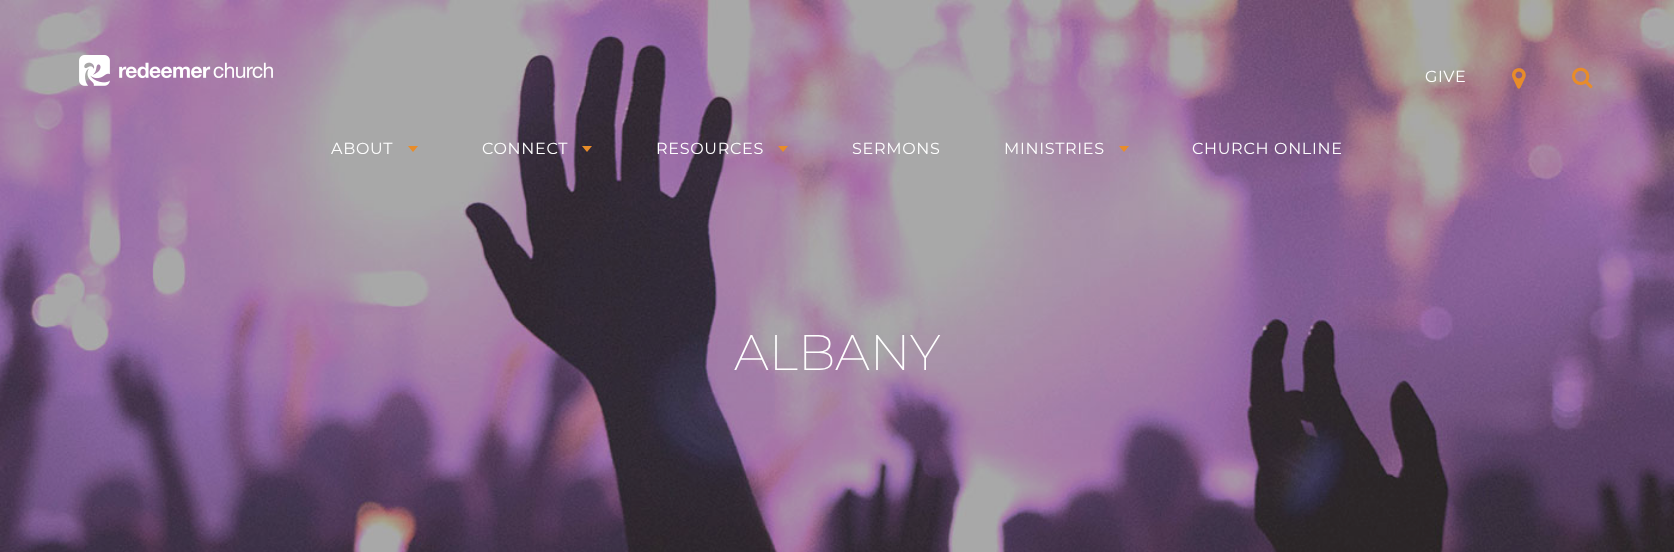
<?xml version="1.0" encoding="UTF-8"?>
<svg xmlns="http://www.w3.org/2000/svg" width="1674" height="552">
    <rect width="100%" height="100%" fill="#FFFFFF"/>
    <image x="0" y="0" width="1674" height="552" href="img_04.png"/>
    <image x="79" y="55" width="194" height="31" href="img_01.png"/>
    <text x="1425" y="82" font-family="Montserrat" font-size="16" letter-spacing="0.7" fill="#FFFFFF">GIVE</text>
    <image x="1512" y="68" width="14" height="21" href="img_02.png"/>
    <image x="1572" y="67" width="21" height="22" href="img_03.png"/>
    <text x="331" y="154" font-family="Montserrat" font-size="16" letter-spacing="0.7" fill="#FFFFFF">ABOUT</text>
    <path d="M 408 146 H 418 L 413 152 Z" fill="#E88C29"/>
    <text x="482" y="154" font-family="Montserrat" font-size="16" letter-spacing="0.7" fill="#FFFFFF">CONNECT</text>
    <path d="M 582 146 H 592 L 587 152 Z" fill="#E88C29"/>
    <text x="656" y="154" font-family="Montserrat" font-size="16" letter-spacing="0.7" fill="#FFFFFF">RESOURCES</text>
    <path d="M 778 146 H 788 L 783 152 Z" fill="#E88C29"/>
    <text x="852" y="154" font-family="Montserrat" font-size="16" letter-spacing="0.7" fill="#FFFFFF">SERMONS</text>
    <text x="1004" y="154" font-family="Montserrat" font-size="16" letter-spacing="0.7" fill="#FFFFFF">MINISTRIES</text>
    <path d="M 1119 146 H 1129 L 1124 152 Z" fill="#E88C29"/>
    <text x="1192" y="154" font-family="Montserrat" font-size="16" letter-spacing="0.7" fill="#FFFFFF">CHURCH ONLINE</text>
    <text x="734" y="370" font-family="Montserrat" font-size="50" font-weight="200" fill="#FFFFFF">ALBANY</text>
</svg>
